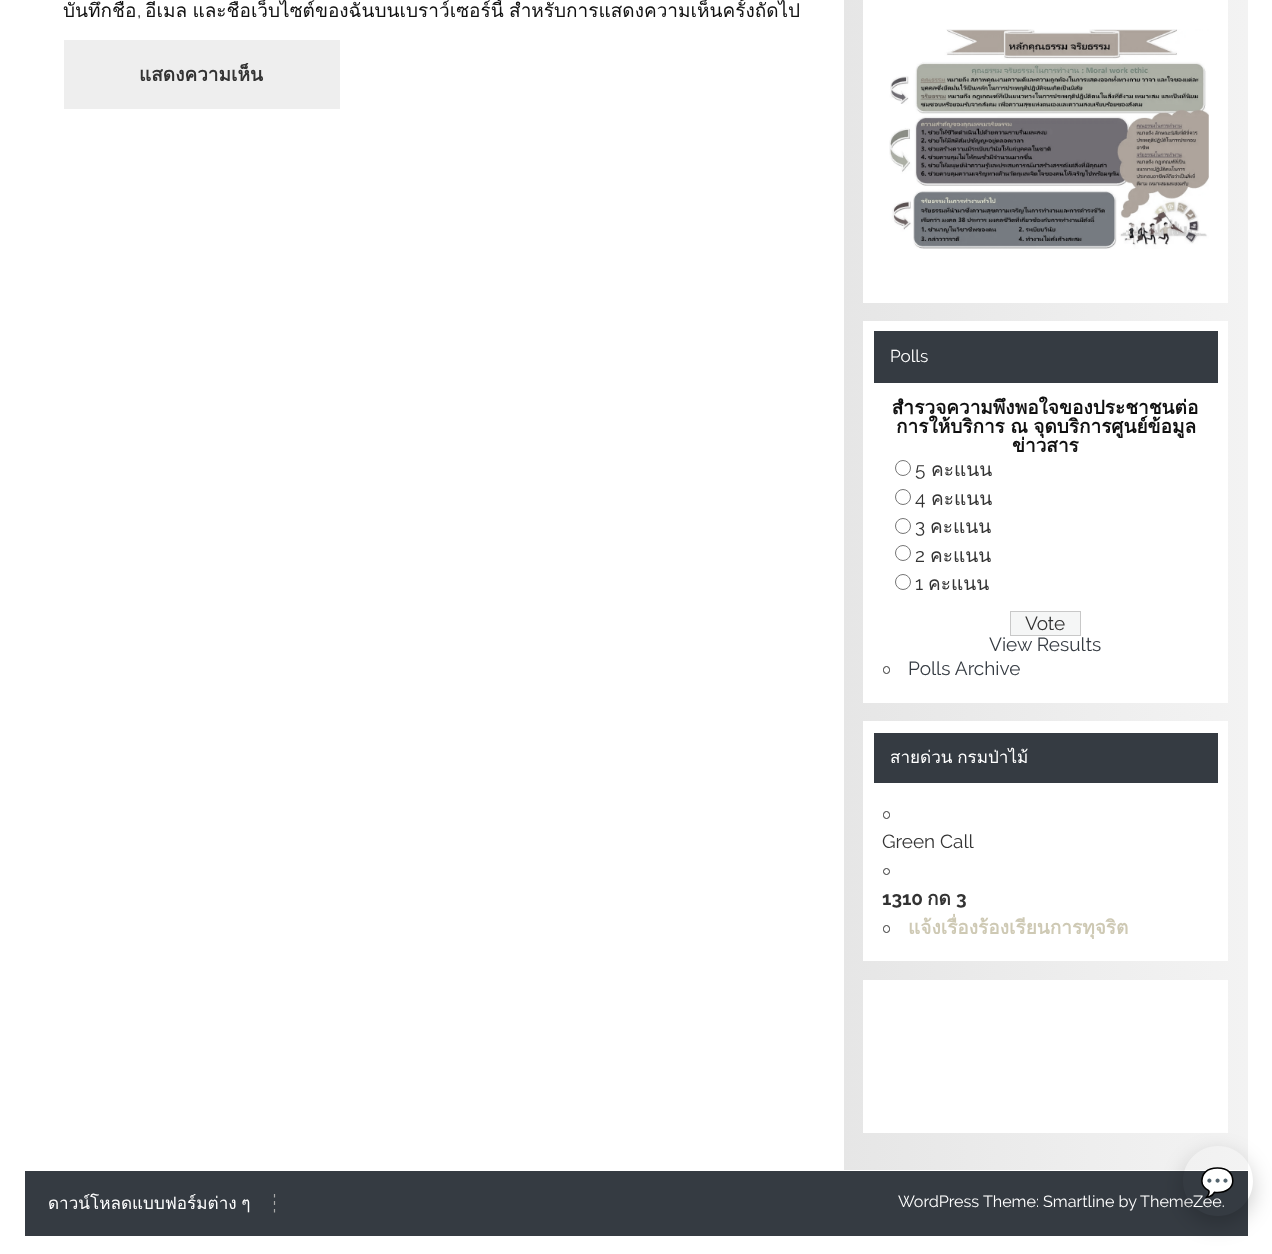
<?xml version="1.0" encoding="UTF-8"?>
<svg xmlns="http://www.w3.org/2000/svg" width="1272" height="1254">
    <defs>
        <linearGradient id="g1" gradientUnits="userSpaceOnUse" x1="844" y1="-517" x2="1248" y2="-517"><stop offset="0" stop-color="#E6E6E6"/><stop offset="1" stop-color="#F3F3F3"/></linearGradient>
        <clipPath id="clip1"><path d="M 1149 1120 H 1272 V 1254 H 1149 Z M 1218 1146 C 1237.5 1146 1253 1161.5 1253 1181 C 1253 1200.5 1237.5 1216 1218 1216 C 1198.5 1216 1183 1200.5 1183 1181 C 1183 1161.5 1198.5 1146 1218 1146 Z" clip-rule="evenodd"/></clipPath>
        <filter id="blur1" x="-50%" y="-200%" width="200%" height="500%"><feGaussianBlur stdDeviation="11"/></filter>
    </defs>
    <rect width="100%" height="100%" fill="#FFFFFF"/>
    <text x="63" y="17" font-family="Loma" font-size="19" fill="#111111">บันทึกชื่อ</text>
    <text x="137" y="17" font-family="Raleway" font-size="19" fill="#111111">,</text>
    <text x="145" y="17" word-spacing="-1" font-family="Loma" font-size="19" fill="#111111">อีเมล และชื่อเว็บไซต์ของฉันบนเบราว์เซอร์นี้ สำหรับการแสดงความเห็นครั้งถัดไป</text>
    <rect x="64" y="40" width="276" height="69" fill="#EEEEEE"/>
    <text x="139" y="81" font-family="Loma" font-size="19" font-weight="700" fill="#333333">แสดงความเห็น</text>
    <rect x="844" y="0" width="404" height="1170" fill="url(#g1)"/>
    <rect x="863" y="0" width="365" height="303" fill="#FFFFFF"/>
    <image x="889" y="29" width="320" height="220" href="img_01.png"/>
    <rect x="863" y="321" width="365" height="382" fill="#FFFFFF"/>
    <rect x="874" y="331" width="344" height="52" fill="#353B42"/>
    <text x="890" y="362" font-family="Raleway" font-size="17.1" fill="#FFFFFF">Polls</text>
    <text x="892" y="414" font-family="Loma" font-size="19" font-weight="700" fill="#111111">สำรวจความพึงพอใจของประชาชนต่อ</text>
    <text x="896" y="433" word-spacing="-1" font-family="Loma" font-size="19" font-weight="700" fill="#111111">การให้บริการ ณ จุดบริการศูนย์ข้อมูล</text>
    <text x="1012" y="452" font-family="Loma" font-size="19" font-weight="700" fill="#111111">ข่าวสาร</text>
    <circle cx="903" cy="468" r="7.5" fill="none" stroke="#767676"/>
    <text x="915" y="476" font-family="Raleway" font-size="19" fill="#333333">5</text>
    <text x="931" y="476" font-family="Loma" font-size="19" fill="#333333">คะแนน</text>
    <circle cx="903" cy="497" r="7.5" fill="none" stroke="#767676"/>
    <text x="915" y="505" font-family="Raleway" font-size="19" fill="#333333">4</text>
    <text x="931" y="505" font-family="Loma" font-size="19" fill="#333333">คะแนน</text>
    <circle cx="903" cy="526" r="7.5" fill="none" stroke="#767676"/>
    <text x="915" y="533" font-family="Raleway" font-size="19" fill="#333333">3</text>
    <text x="930" y="533" font-family="Loma" font-size="19" fill="#333333">คะแนน</text>
    <circle cx="903" cy="553" r="7.5" fill="none" stroke="#767676"/>
    <text x="915" y="562" font-family="Raleway" font-size="19" fill="#333333">2</text>
    <text x="930" y="562" font-family="Loma" font-size="19" fill="#333333">คะแนน</text>
    <circle cx="903" cy="582" r="7.5" fill="none" stroke="#767676"/>
    <text x="915" y="590" font-family="Raleway" font-size="19" fill="#333333">1</text>
    <text x="928" y="590" font-family="Loma" font-size="19" fill="#333333">คะแนน</text>
    <rect x="1010.5" y="611.5" width="70" height="24" fill="#F5F6F6" stroke="#C8C8C8"/>
    <text x="1025" y="630" font-family="Raleway" font-size="19" fill="#333333">Vote</text>
    <text x="989" y="651" font-family="Raleway" font-size="19" fill="#353B42">View Results</text>
    <rect x="883.5" y="666.5" width="6" height="7" rx="3" fill="none" stroke="#333333"/>
    <text x="908" y="675" font-family="Raleway" font-size="19" fill="#353B42">Polls Archive</text>
    <rect x="863" y="721" width="365" height="240" fill="#FFFFFF"/>
    <rect x="874" y="733" width="344" height="50" fill="#353B42"/>
    <text x="890" y="763" word-spacing="-1" font-family="Loma" font-size="17.1" fill="#FFFFFF">สายด่วน กรมป่าไม้</text>
    <rect x="883.5" y="811.5" width="6" height="7" rx="3" fill="none" stroke="#333333"/>
    <text x="882" y="848" font-family="Raleway" font-size="19" fill="#333333">Green Call</text>
    <circle cx="886.5" cy="871.5" r="3" fill="none" stroke="#333333"/>
    <text x="882" y="905" font-family="Raleway" font-size="19" font-weight="700" fill="#333333">1310</text>
    <text x="927" y="905" font-family="Loma" font-size="19" font-weight="700" fill="#333333">กด</text>
    <text x="956" y="905" font-family="Raleway" font-size="19" font-weight="700" fill="#333333">3</text>
    <rect x="883.5" y="925.5" width="6" height="7" rx="3" fill="none" stroke="#333333"/>
    <text x="908" y="934" font-family="Loma" font-size="19" font-weight="700" fill="#CEC9B4">แจ้งเรื่องร้องเรียนการทุจริต</text>
    <rect x="863" y="980" width="365" height="153" fill="#FFFFFF"/>
    <rect x="25" y="1171" width="1223" height="65" fill="#353B42"/>
    <path d="M 274.5 1194 V 1197.5 M 274.5 1201 V 1205 M 274.5 1209 V 1212.5" fill="none" stroke="#AAAAAA" stroke-width="1.2"/>
    <text x="48" y="1209" word-spacing="-1" font-family="Loma" font-size="17.1" fill="#FFFFFF">ดาวน์โหลดแบบฟอร์มต่าง ๆ</text>
    <text x="898" y="1207" font-family="Raleway" font-size="16.15" fill="#FFFFFF">WordPress Theme: Smartline by ThemeZee.</text>
    <g clip-path="url(#clip1)">
        <rect x="1183" y="1154" width="70" height="70" rx="35" fill="#000000" fill-opacity="0.2" filter="url(#blur1)"/>
    </g>
    <text x="1200" y="1192" font-family="Noto Color Emoji" font-size="28" fill="#FFFFFF">💬</text>
</svg>
